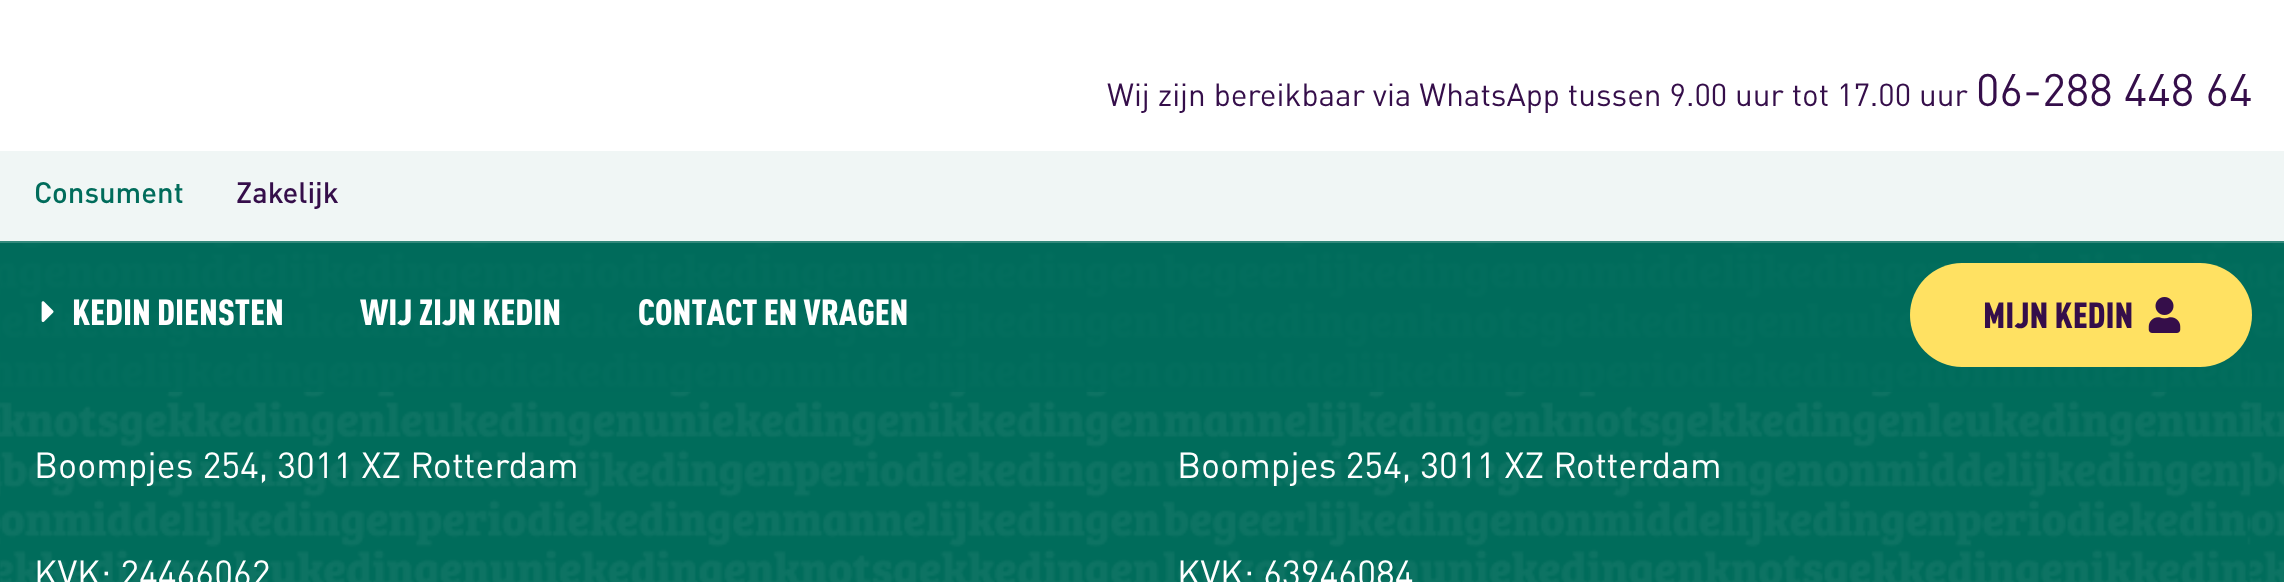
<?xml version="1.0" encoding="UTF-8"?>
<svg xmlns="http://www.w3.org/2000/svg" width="2284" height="582">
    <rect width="100%" height="100%" fill="#FFFFFF"/>
    <text x="1107" y="106" font-family="DIN" font-size="31.5" fill="#350E4A">Wij zijn bereikbaar via WhatsApp tussen 9.00 uur tot 17.00 uur</text>
    <text x="1976" y="106" font-family="DIN" font-size="45" fill="#350E4A">06-288 448 64</text>
    <rect x="0" y="151" width="2284" height="90" fill="#F0F6F5"/>
    <text x="34" y="203" font-family="DIN" font-size="29.25" font-weight="500" fill="#006C5B">Consument</text>
    <text x="236" y="203" font-family="DIN" font-size="29.25" font-weight="500" fill="#350E4A">Zakelijk</text>
    <rect x="0" y="243" width="2284" height="339" fill="#006C5B"/>
    <image x="0" y="243" width="2284" height="339" href="img_03.png"/>
    <rect x="0" y="241" width="2284" height="151" fill="#006C5B" fill-opacity="0.8"/>
    <image x="41" y="301" width="13" height="21" href="img_01.png"/>
    <text x="72" y="325" font-family="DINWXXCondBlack" font-size="36" font-weight="900" fill="#FFFFFF">KEDIN DIENSTEN</text>
    <text x="360" y="325" font-family="DINWXXCondBlack" font-size="36" font-weight="900" fill="#FFFFFF">WIJ ZIJN KEDIN</text>
    <text x="638" y="325" font-family="DINWXXCondBlack" font-size="36" font-weight="900" fill="#FFFFFF">CONTACT EN VRAGEN</text>
    <rect x="1910" y="263" width="342" height="104" rx="52" fill="#FFE162"/>
    <text x="1983" y="328" font-family="DINWXXCondBlack" font-size="36" font-weight="900" fill="#350E4A">MIJN KEDIN</text>
    <image x="2148" y="297" width="33" height="36" href="img_02.png"/>
    <text x="34" y="478" font-family="DIN" font-size="36" fill="#FFFFFF">Boompjes 254, 3011 XZ Rotterdam</text>
    <text x="34" y="586" font-family="DIN" font-size="36" fill="#FFFFFF">KVK: 24466062</text>
    <text x="1177" y="478" font-family="DIN" font-size="36" fill="#FFFFFF">Boompjes 254, 3011 XZ Rotterdam</text>
    <text x="1177" y="586" font-family="DIN" font-size="36" fill="#FFFFFF">KVK: 63946084</text>
</svg>
